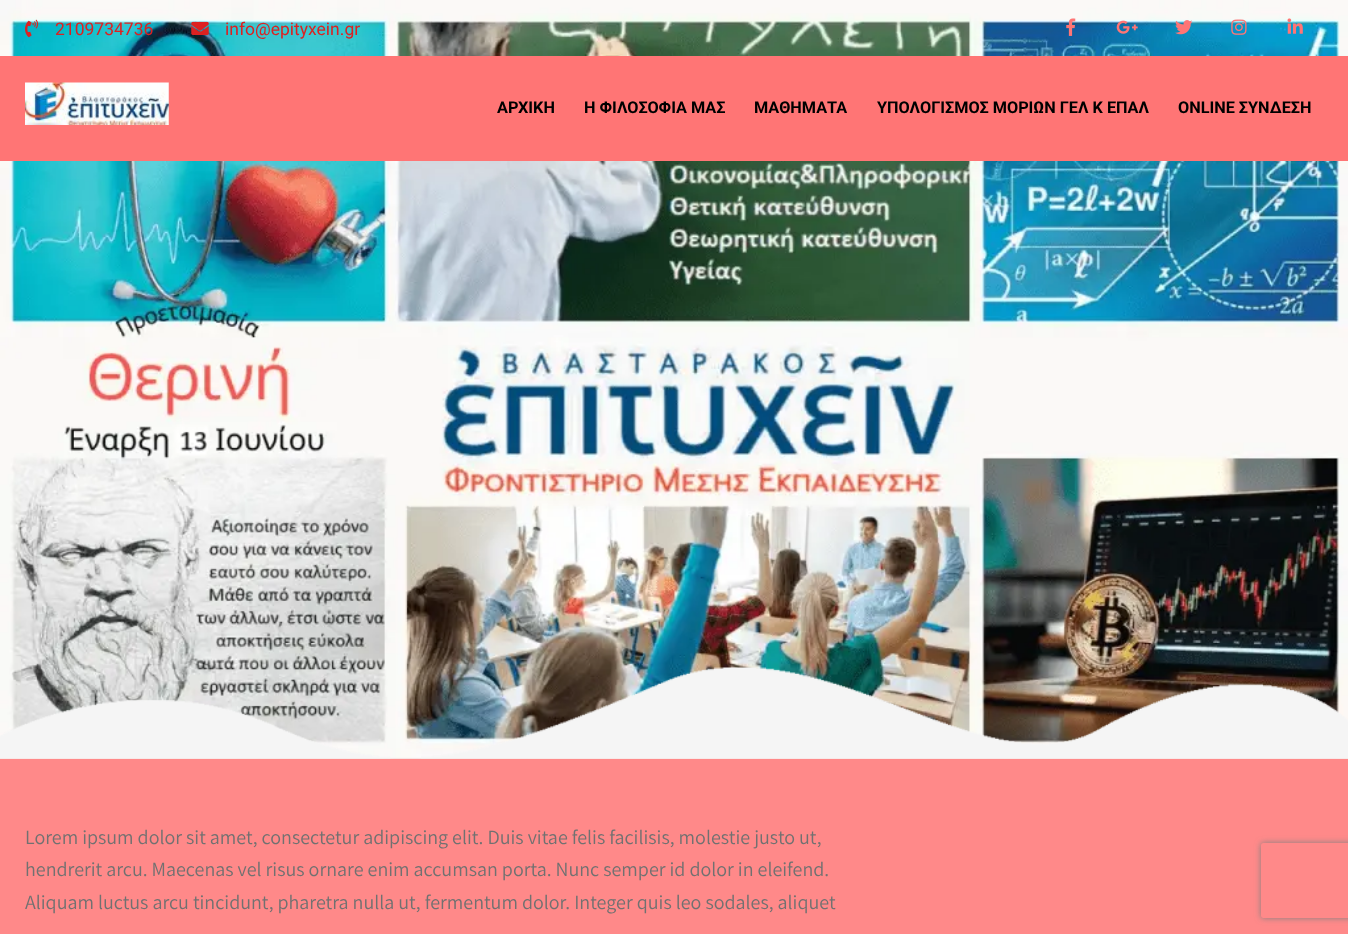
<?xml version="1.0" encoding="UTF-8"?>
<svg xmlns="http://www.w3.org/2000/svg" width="1348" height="934">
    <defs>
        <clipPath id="clip1"><path d="M 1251 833 H 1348 V 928 H 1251 Z M 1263.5 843 H 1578.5 C 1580 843 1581 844 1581 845.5 V 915.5 C 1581 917 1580 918 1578.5 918 H 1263.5 C 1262 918 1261 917 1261 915.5 V 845.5 C 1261 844 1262 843 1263.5 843 Z" clip-rule="evenodd"/></clipPath>
        <filter id="blur1" x="-50%" y="-200%" width="200%" height="500%"><feGaussianBlur stdDeviation="3"/></filter>
    </defs>
    <rect width="100%" height="100%" fill="#FF8989"/>
    <image x="0" y="0" width="1348" height="759" href="img_01.png"/>
    <image x="0" y="667" width="1348" height="92" href="img_02.png"/>
    <image x="25" y="19" width="14" height="19" href="img_03.png"/>
    <text x="55" y="35" font-family="Roboto" font-size="17.5" fill="#DD2121">2109734736</text>
    <image x="191" y="21" width="18" height="14" href="img_04.png"/>
    <text x="225" y="35" font-family="Roboto" font-size="17.5" fill="#DD2121">info@epityxein.gr</text>
    <image x="1066" y="18" width="10" height="18" href="img_05.png"/>
    <image x="1116" y="20" width="22" height="14" href="img_06.png"/>
    <image x="1175" y="20" width="18" height="15" href="img_07.png"/>
    <image x="1231" y="19" width="16" height="16" href="img_08.png"/>
    <image x="1287" y="18" width="16" height="16" href="img_09.png"/>
    <rect x="0" y="56" width="1348" height="105" fill="#FF7575"/>
    <image x="25" y="82" width="144" height="43" href="img_10.png"/>
    <text x="497" y="113" font-family="Roboto" font-size="16.25" font-weight="700" fill="#000000">ΑΡΧΙΚΗ</text>
    <text x="584" y="113" font-family="Roboto" font-size="16.25" font-weight="700" fill="#000000">Η ΦΙΛΟΣΟΦΙΑ ΜΑΣ</text>
    <text x="754" y="113" font-family="Roboto" font-size="16.25" font-weight="700" fill="#000000">ΜΑΘΗΜΑΤΑ</text>
    <text x="877" y="113" font-family="Roboto" font-size="16.25" font-weight="700" fill="#000000">ΥΠΟΛΟΓΙΣΜΟΣ ΜΟΡΙΩΝ ΓΕΛ Κ ΕΠΑΛ</text>
    <text x="1178" y="113" font-family="Roboto" font-size="16.25" font-weight="700" fill="#000000">ONLINE ΣΥΝΔΕΣΗ</text>
    <text font-family="Assistant" font-size="20" fill="#717171">
        <tspan x="25" y="844">Lorem ipsum dolor sit amet, consectetur adipiscing elit. Duis vitae felis facilisis, molestie justo ut,</tspan>
        <tspan x="25" y="876">hendrerit arcu. Maecenas vel risus ornare enim accumsan porta. Nunc semper id dolor in eleifend.</tspan>
        <tspan x="25" y="909">Aliquam luctus arcu tincidunt, pharetra nulla ut, fermentum dolor. Integer quis leo sodales, aliquet</tspan>
    </text>
    <g clip-path="url(#clip1)">
        <rect x="1261" y="843" width="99" height="75" rx="2.5" fill="#808080" filter="url(#blur1)"/>
    </g>
</svg>
